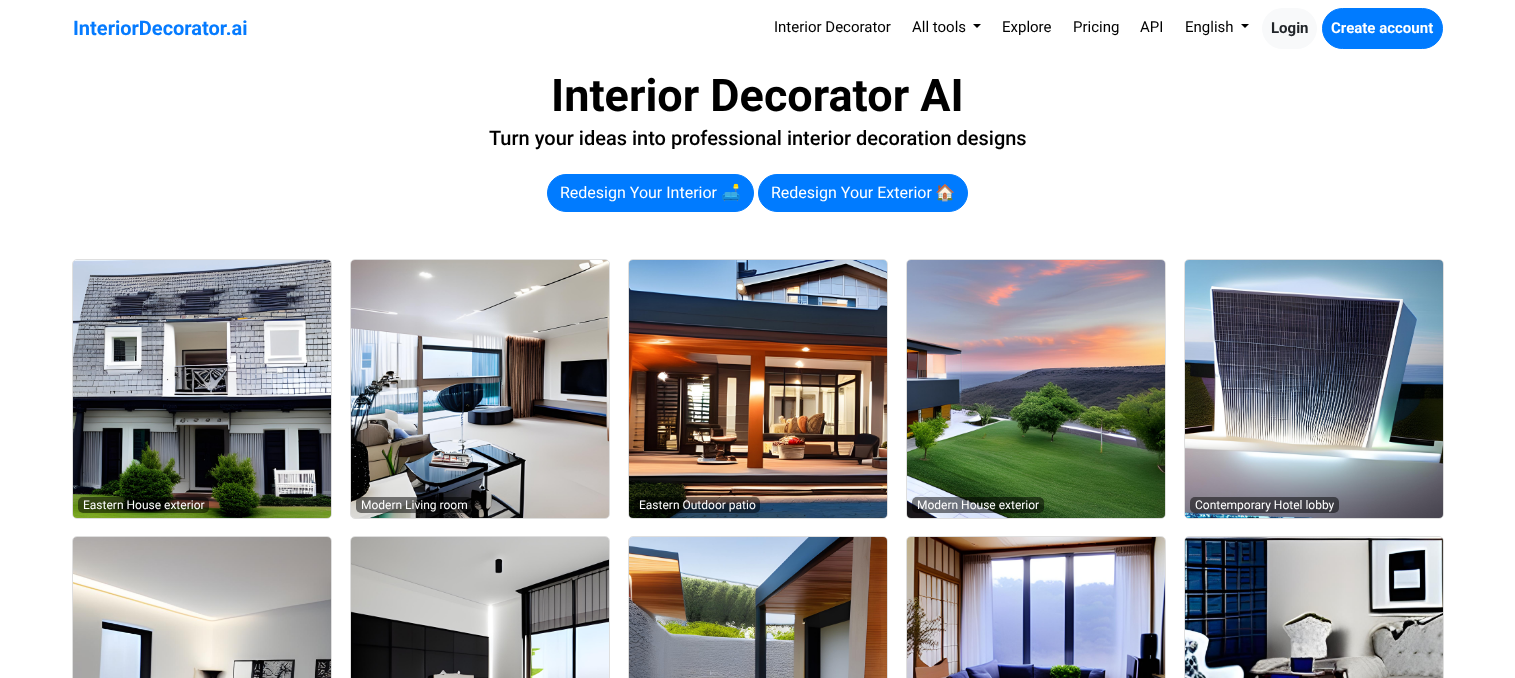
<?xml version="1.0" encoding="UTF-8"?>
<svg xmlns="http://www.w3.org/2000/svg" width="1515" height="678">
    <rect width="100%" height="100%" fill="#FFFFFF"/>
    <text x="73" y="35" font-family="Roboto" font-size="20" font-weight="700" fill="#057BFF">InteriorDecorator.ai</text>
    <text x="774" y="32" font-family="Roboto" font-size="15" fill="#000000">Interior Decorator</text>
    <text x="912" y="32" font-family="Roboto" font-size="15" fill="#000000">All tools</text>
    <path d="M 973 24 H 981 L 977 28 Z" fill="#000000"/>
    <text x="1002" y="32" font-family="Roboto" font-size="15" fill="#000000">Explore</text>
    <text x="1073" y="32" font-family="Roboto" font-size="15" fill="#000000">Pricing</text>
    <text x="1140" y="32" font-family="Roboto" font-size="15" fill="#000000">API</text>
    <text x="1185" y="32" font-family="Roboto" font-size="15" fill="#000000">English</text>
    <path d="M 1241 24 H 1249 L 1245 28 Z" fill="#000000"/>
    <rect x="1262" y="8" width="55" height="41" rx="20.5" fill="#F8F9FA"/>
    <text x="1271" y="33" font-family="Roboto" font-size="15" font-weight="700" fill="#212529">Login</text>
    <rect x="1322.5" y="8.5" width="120" height="40" rx="20" fill="#007BFF" stroke="#007BFF"/>
    <text x="1331" y="33" font-family="Roboto" font-size="15" font-weight="700" fill="#FFFFFF">Create account</text>
    <text x="551" y="111" font-family="Roboto" font-size="45" font-weight="700" fill="#000000">Interior Decorator AI</text>
    <text x="489" y="145" font-family="Roboto" font-size="20" font-weight="500" fill="#000000">Turn your ideas into professional interior decoration designs</text>
    <rect x="547.5" y="174.5" width="206" height="37" rx="18.5" fill="#007BFF" stroke="#007BFF"/>
    <text x="560" y="198" font-family="Roboto" font-size="16" fill="#FFFFFF">Redesign Your Interior</text>
    <text x="721" y="198" font-family="Noto Color Emoji" font-size="16" fill="#FFFFFF">🛋️</text>
    <rect x="758.5" y="174.5" width="209" height="37" rx="18.5" fill="#007BFF" stroke="#007BFF"/>
    <text x="771" y="198" font-family="Roboto" font-size="16" fill="#FFFFFF">Redesign Your Exterior</text>
    <text x="935" y="198" font-family="Noto Color Emoji" font-size="16" fill="#FFFFFF">🏠</text>
    <rect x="72.5" y="259.5" width="259" height="259" rx="4.5" fill="none" stroke="#DFDFDF"/>
    <image x="73" y="260" width="258" height="258" href="img_01.png"/>
    <image x="73" y="260" width="258" height="258" href="img_02.png"/>
    <rect x="78" y="497" width="131" height="16" rx="5" fill="#000000" fill-opacity="0.5"/>
    <text x="83" y="509" font-family="Roboto" font-size="12" fill="#FFFFFF">Eastern House exterior</text>
    <rect x="350.5" y="259.5" width="259" height="259" rx="4.5" fill="none" stroke="#DFDFDF"/>
    <image x="351" y="260" width="258" height="258" href="img_01.png"/>
    <image x="351" y="260" width="258" height="258" href="img_03.png"/>
    <rect x="356" y="497" width="116" height="16" rx="5" fill="#000000" fill-opacity="0.5"/>
    <text x="361" y="509" font-family="Roboto" font-size="12" fill="#FFFFFF">Modern Living room</text>
    <rect x="628.5" y="259.5" width="259" height="259" rx="4.5" fill="none" stroke="#DFDFDF"/>
    <image x="629" y="260" width="258" height="258" href="img_01.png"/>
    <image x="629" y="260" width="258" height="258" href="img_04.png"/>
    <rect x="634" y="497" width="126" height="16" rx="5" fill="#000000" fill-opacity="0.5"/>
    <text x="639" y="509" font-family="Roboto" font-size="12" fill="#FFFFFF">Eastern Outdoor patio</text>
    <rect x="906.5" y="259.5" width="259" height="259" rx="4.5" fill="none" stroke="#DFDFDF"/>
    <image x="907" y="260" width="258" height="258" href="img_01.png"/>
    <image x="907" y="260" width="258" height="258" href="img_05.png"/>
    <rect x="912" y="497" width="132" height="16" rx="5" fill="#000000" fill-opacity="0.5"/>
    <text x="917" y="509" font-family="Roboto" font-size="12" fill="#FFFFFF">Modern House exterior</text>
    <rect x="1184.5" y="259.5" width="259" height="259" rx="4.5" fill="none" stroke="#DFDFDF"/>
    <image x="1185" y="260" width="258" height="258" href="img_01.png"/>
    <image x="1185" y="260" width="258" height="258" href="img_06.png"/>
    <rect x="1190" y="497" width="149" height="16" rx="5" fill="#000000" fill-opacity="0.5"/>
    <text x="1195" y="509" font-family="Roboto" font-size="12" fill="#FFFFFF">Contemporary Hotel lobby</text>
    <rect x="72.5" y="536.5" width="259" height="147" rx="4.5" fill="none" stroke="#DFDFDF"/>
    <image x="73" y="537" width="258" height="4" href="img_07.png"/>
    <image x="73" y="537" width="258" height="141" href="img_08.png"/>
    <rect x="350.5" y="536.5" width="259" height="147" rx="4.5" fill="none" stroke="#DFDFDF"/>
    <image x="351" y="537" width="258" height="4" href="img_07.png"/>
    <image x="351" y="537" width="258" height="141" href="img_09.png"/>
    <rect x="628.5" y="536.5" width="259" height="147" rx="4.5" fill="none" stroke="#DFDFDF"/>
    <image x="629" y="537" width="258" height="4" href="img_07.png"/>
    <image x="629" y="537" width="258" height="141" href="img_10.png"/>
    <rect x="906.5" y="536.5" width="259" height="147" rx="4.5" fill="none" stroke="#DFDFDF"/>
    <image x="907" y="537" width="258" height="4" href="img_07.png"/>
    <image x="907" y="537" width="258" height="141" href="img_11.png"/>
    <rect x="1184.5" y="536.5" width="259" height="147" rx="4.5" fill="none" stroke="#DFDFDF"/>
    <image x="1185" y="537" width="258" height="4" href="img_07.png"/>
    <image x="1185" y="537" width="258" height="141" href="img_12.png"/>
</svg>
